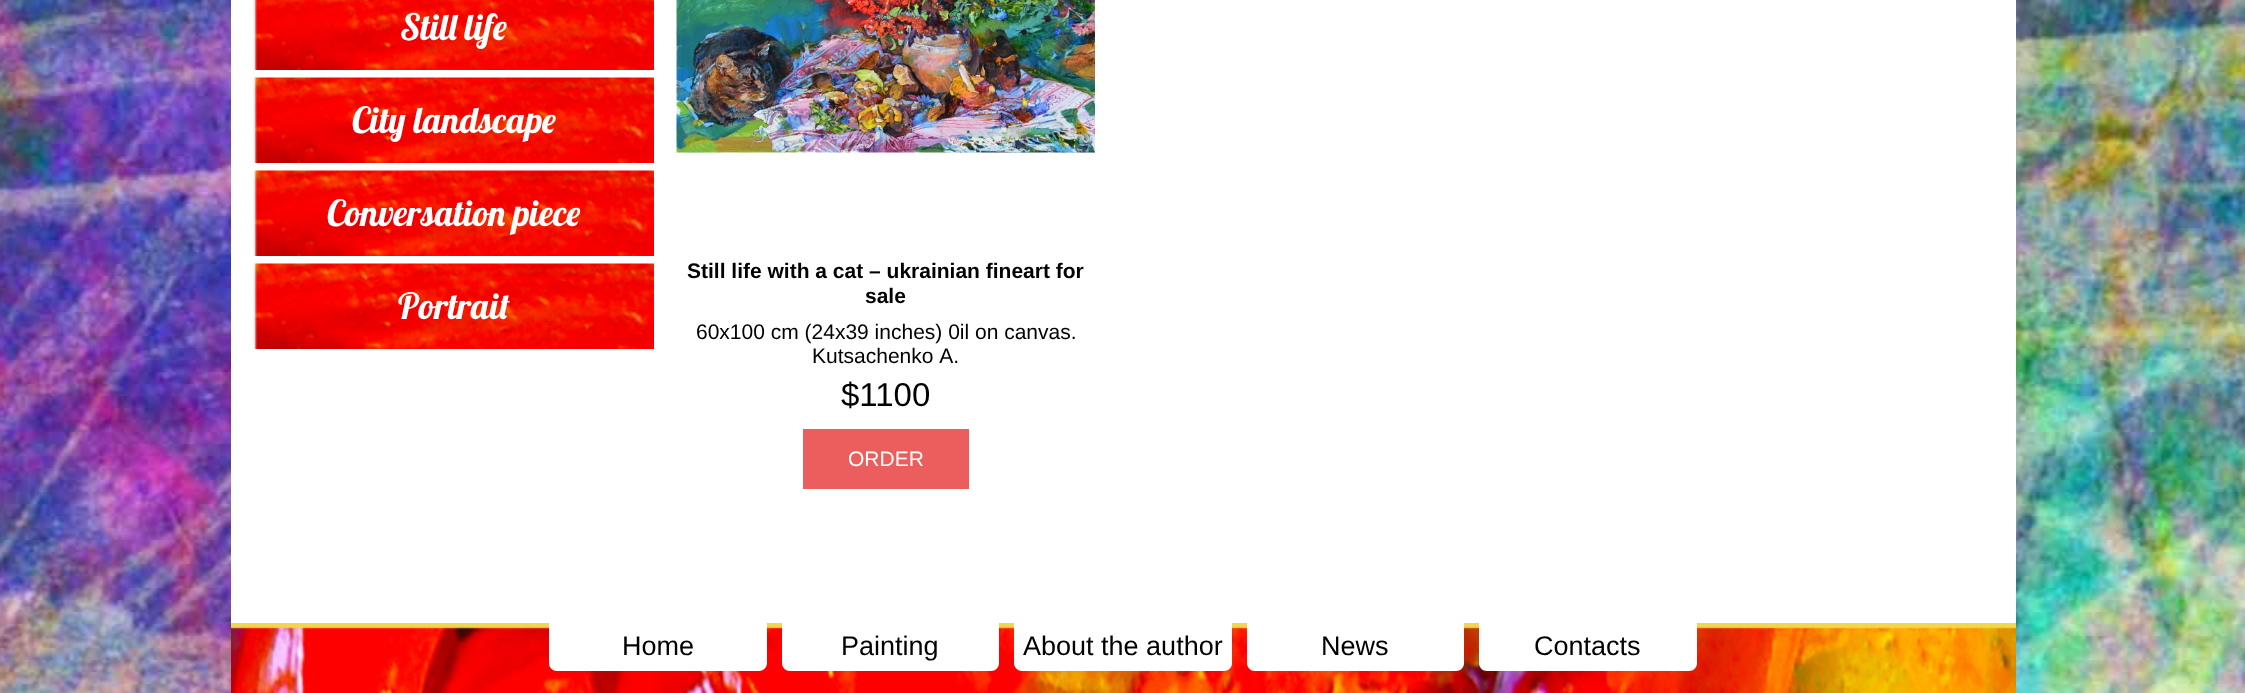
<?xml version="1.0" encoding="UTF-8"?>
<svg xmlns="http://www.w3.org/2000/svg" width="2245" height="693">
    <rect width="100%" height="100%" fill="#FFFFFF"/>
    <image x="0" y="0" width="2245" height="693" href="img_01.png"/>
    <rect x="231" y="0" width="1785" height="623" fill="#FFFFFF"/>
    <image x="253" y="0" width="401" height="70" href="img_02.png"/>
    <text x="400" y="40" font-family="Lobster" font-size="36" fill="#FFFFFF">Still life</text>
    <image x="253" y="77" width="401" height="86" href="img_03.png"/>
    <text x="352" y="133" font-family="Lobster" font-size="36" fill="#FFFFFF">City landscape</text>
    <image x="253" y="170" width="401" height="86" href="img_03.png"/>
    <text x="327" y="226" font-family="Lobster" font-size="36" fill="#FFFFFF">Conversation piece</text>
    <image x="253" y="263" width="401" height="86" href="img_03.png"/>
    <text x="398" y="319" font-family="Lobster" font-size="36" fill="#FFFFFF">Portrait</text>
    <image x="676" y="0" width="419" height="153" href="img_04.png"/>
    <text x="687" y="278" font-family="Liberation Sans" font-size="21" font-weight="700" fill="#000000">Still life with a cat – ukrainian fineart for</text>
    <text x="865" y="303" font-family="Liberation Sans" font-size="21" font-weight="700" fill="#000000">sale</text>
    <text x="696" y="339" font-family="Liberation Sans" font-size="21" fill="#000000">60х100 cm (24x39 inches) 0il on canvas.</text>
    <text x="812" y="363" font-family="Liberation Sans" font-size="21" fill="#000000">Kutsachenko А.</text>
    <text x="841" y="406" font-family="Liberation Sans" font-size="33" fill="#000000">$1100</text>
    <rect x="803" y="429" width="166" height="60" fill="#EC5E5D"/>
    <text x="848" y="466" font-family="Liberation Sans" font-size="21" fill="#FFFFFF">ORDER</text>
    <image x="231" y="626" width="1785" height="67" href="img_05.png"/>
    <rect x="231" y="623" width="1785" height="3" fill="#F2D74D"/>
    <path d="M 549 623 H 767 V 663 C 767 667.5 763.5 671 759 671 H 557 C 552.5 671 549 667.5 549 663 Z" fill="#FFFFFF"/>
    <text x="622" y="655" font-family="Liberation Sans" font-size="27" fill="#000000">Home</text>
    <path d="M 782 623 H 999 V 663 C 999 667.5 995.5 671 991 671 H 790 C 785.5 671 782 667.5 782 663 Z" fill="#FFFFFF"/>
    <text x="841" y="655" font-family="Liberation Sans" font-size="27" fill="#000000">Painting</text>
    <path d="M 1014 623 H 1232 V 663 C 1232 667.5 1228.5 671 1224 671 H 1022 C 1017.5 671 1014 667.5 1014 663 Z" fill="#FFFFFF"/>
    <text x="1023" y="655" font-family="Liberation Sans" font-size="27" fill="#000000">About the author</text>
    <path d="M 1247 623 H 1464 V 663 C 1464 667.5 1460.5 671 1456 671 H 1255 C 1250.5 671 1247 667.5 1247 663 Z" fill="#FFFFFF"/>
    <text x="1321" y="655" font-family="Liberation Sans" font-size="27" fill="#000000">News</text>
    <path d="M 1479 623 H 1697 V 663 C 1697 667.5 1693.5 671 1689 671 H 1487 C 1482.5 671 1479 667.5 1479 663 Z" fill="#FFFFFF"/>
    <text x="1534" y="655" font-family="Liberation Sans" font-size="27" fill="#000000">Contacts</text>
</svg>
